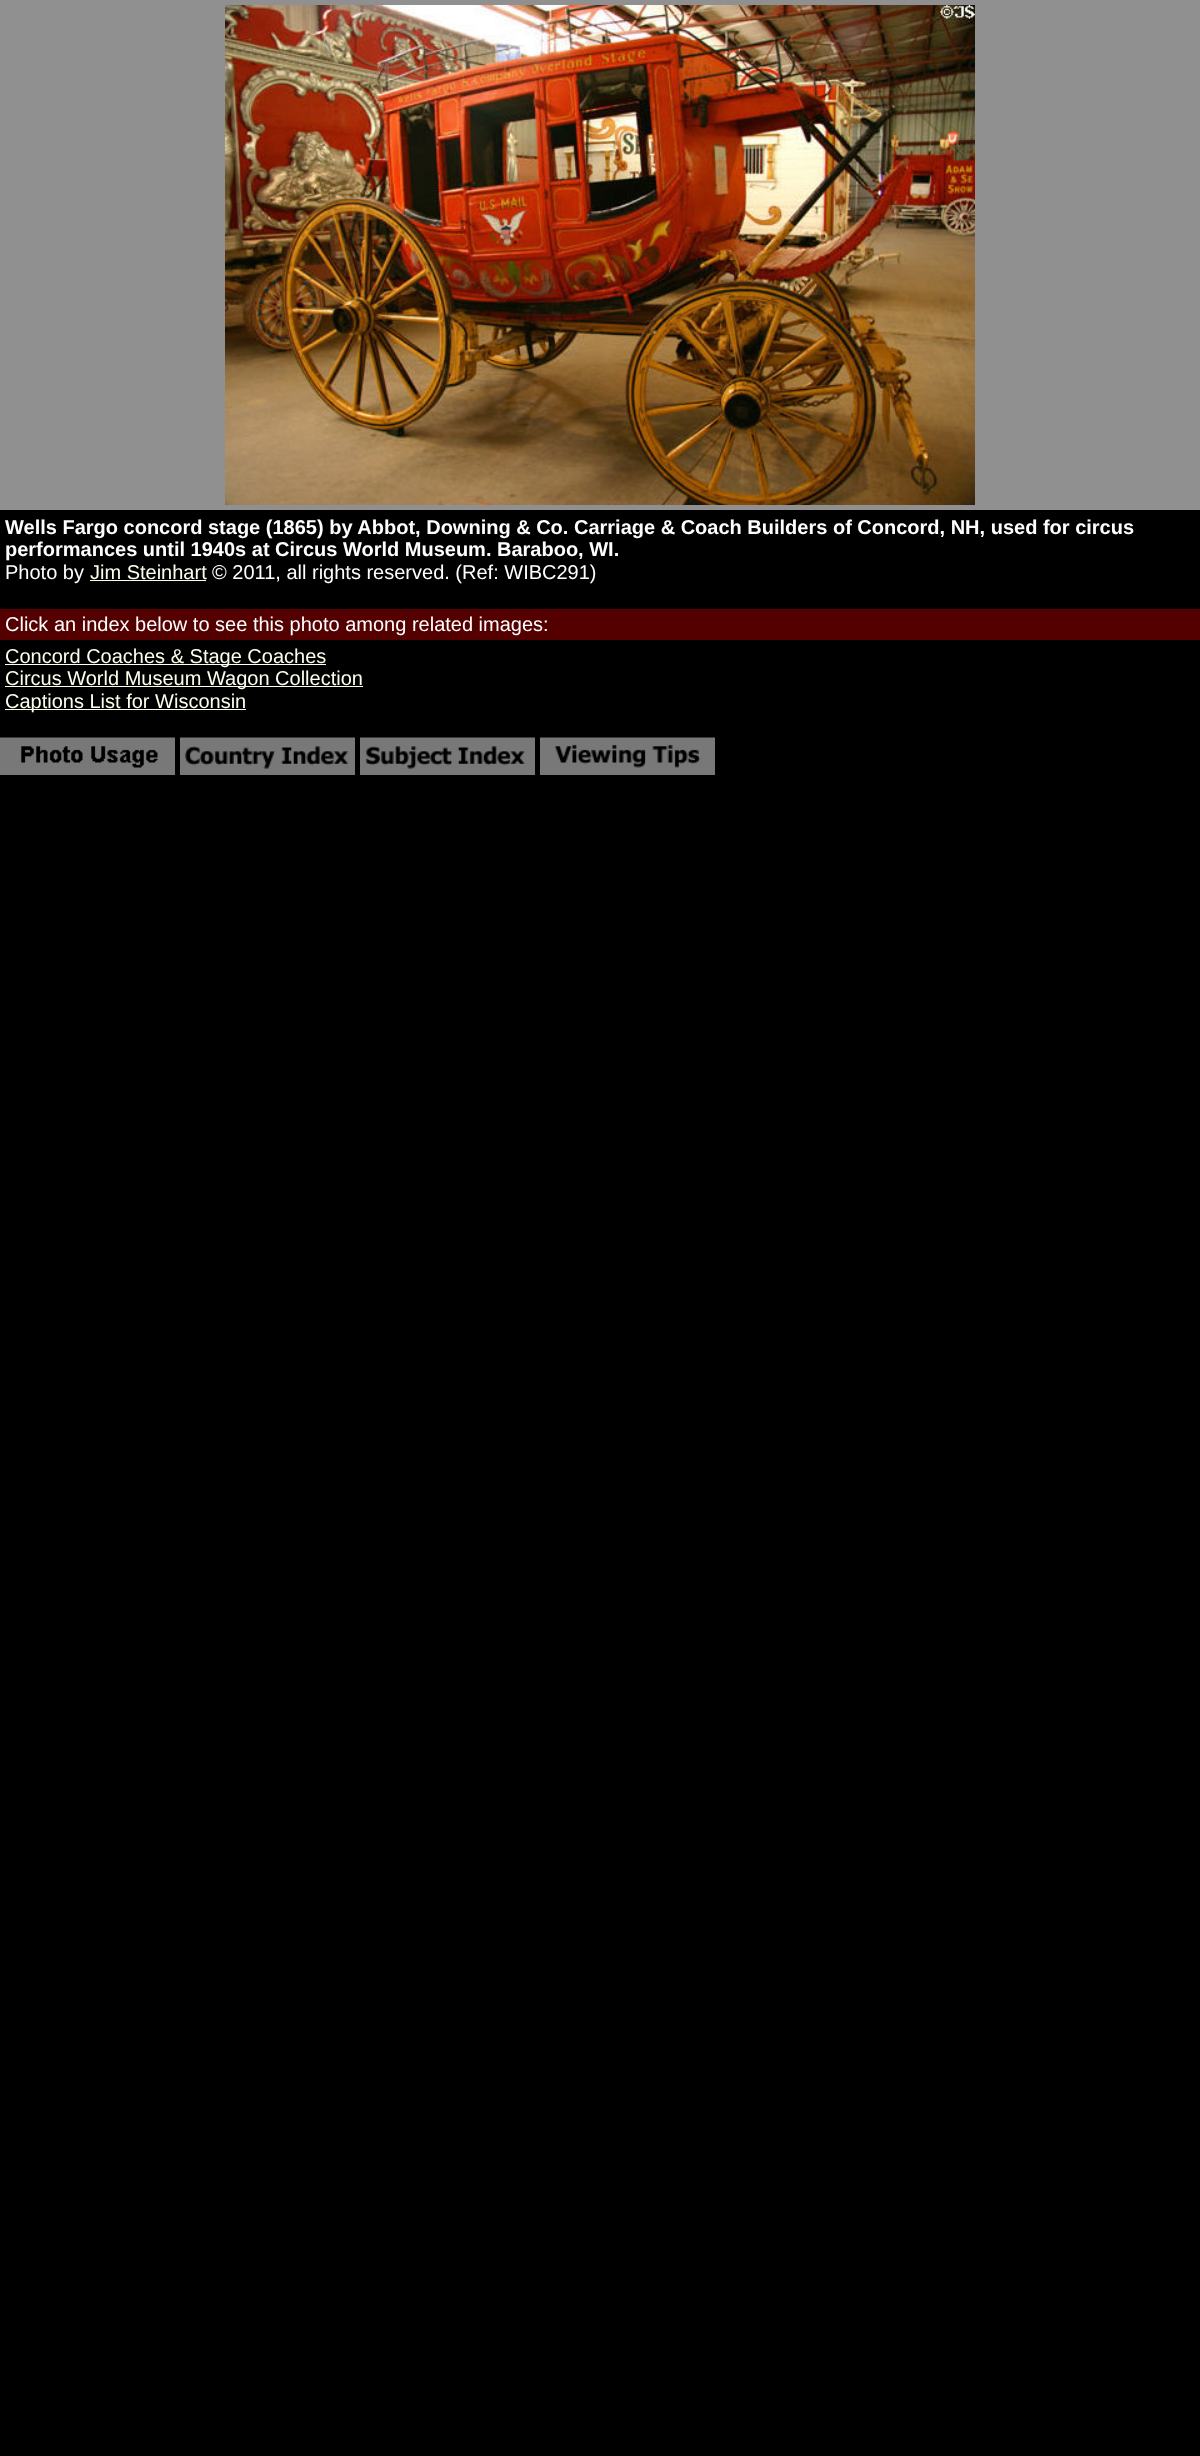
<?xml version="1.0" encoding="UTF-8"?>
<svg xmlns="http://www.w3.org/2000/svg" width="1200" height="2456">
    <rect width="100%" height="100%" fill="#000000"/>
    <rect x="0" y="0" width="1200" height="510" fill="#909090"/>
    <image x="225" y="5" width="750" height="500" href="img_01.png"/>
    <text font-family="Liberation Sans" font-size="20" font-weight="700" fill="#FFFFFF">
        <tspan x="5" y="534">Wells Fargo concord stage (1865) by Abbot, Downing &amp; Co. Carriage &amp; Coach Builders of Concord, NH, used for circus</tspan>
        <tspan x="5" y="556">performances until 1940s at Circus World Museum. Baraboo, WI.</tspan>
    </text>
    <text x="5" y="579" font-family="Liberation Sans" font-size="20" fill="#FFFFFF">Photo by</text>
    <text x="90" y="579" font-family="Liberation Sans" font-size="20" fill="#FFFFEE">Jim Steinhart</text>
    <rect x="90" y="580" width="116" height="1" fill="#FFFFEE"/>
    <text x="212" y="579" font-family="Liberation Sans" font-size="20" fill="#FFFFFF">© 2011, all rights reserved. (Ref: WIBC291)</text>
    <rect x="0" y="609" width="1200" height="31" fill="#550000"/>
    <text x="5" y="631" font-family="Liberation Sans" font-size="20" fill="#FFFFFF">Click an index below to see this photo among related images:</text>
    <rect x="5" y="664" width="321" height="1" fill="#FFFFEE"/>
    <text x="5" y="663" font-family="Liberation Sans" font-size="20" fill="#FFFFEE">Concord Coaches &amp; Stage Coaches</text>
    <rect x="5" y="686" width="358" height="1" fill="#FFFFEE"/>
    <text x="5" y="685" font-family="Liberation Sans" font-size="20" fill="#FFFFEE">Circus World Museum Wagon Collection</text>
    <rect x="5" y="709" width="241" height="1" fill="#FFFFEE"/>
    <text x="5" y="708" font-family="Liberation Sans" font-size="20" fill="#FFFFEE">Captions List for Wisconsin</text>
    <image x="0" y="737" width="175" height="38" href="img_02.png"/>
    <image x="180" y="737" width="175" height="38" href="img_03.png"/>
    <image x="360" y="737" width="175" height="38" href="img_04.png"/>
    <image x="540" y="737" width="175" height="38" href="img_05.png"/>
</svg>
